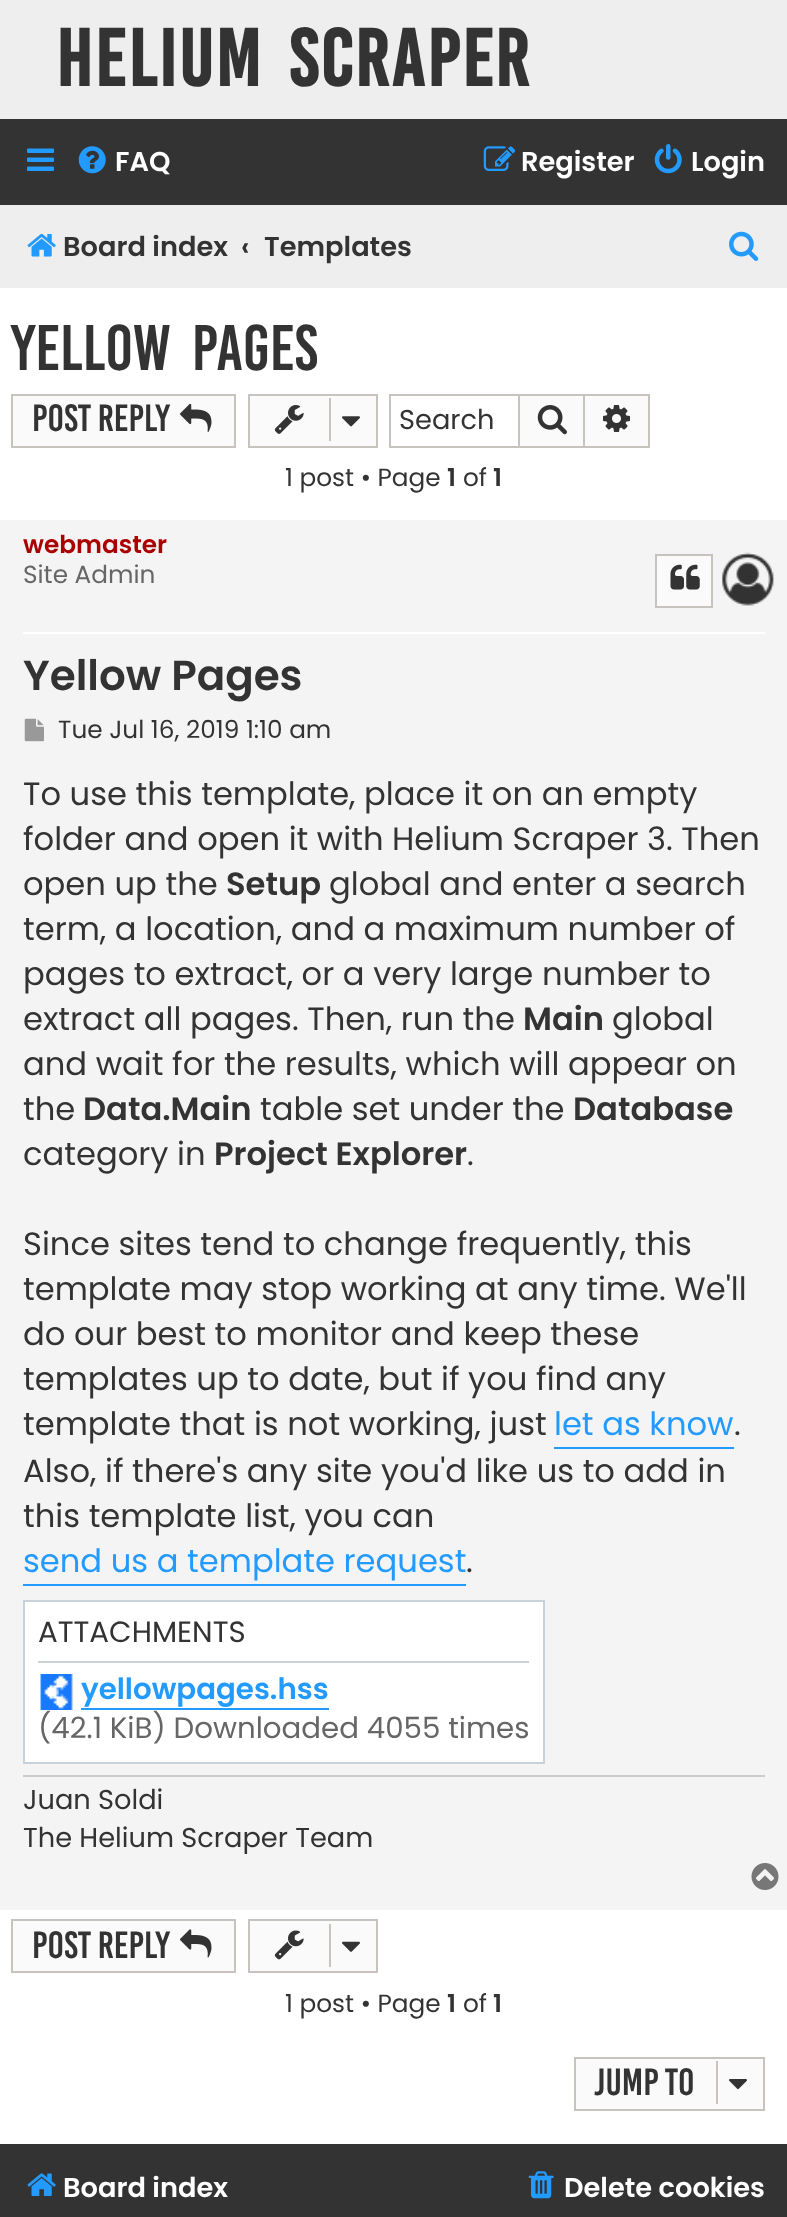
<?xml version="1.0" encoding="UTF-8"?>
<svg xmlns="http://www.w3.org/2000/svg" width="787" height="2217">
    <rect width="100%" height="100%" fill="#FFFFFF"/>
    <rect x="0" y="0" width="787" height="119" fill="#EEEEEE"/>
    <text x="56" y="86" word-spacing="9" font-family="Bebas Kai" font-size="62" font-weight="700" letter-spacing="2.25" fill="#333333">Helium Scraper</text>
    <rect x="0" y="119" width="787" height="86" fill="#333333"/>
    <image x="27" y="148" width="27" height="23" href="img_01.png"/>
    <image x="78" y="146" width="28" height="28" href="img_02.png"/>
    <text x="115" y="171" font-family="Poppins" font-size="27.25" font-weight="600" fill="#FFFFFF">FAQ</text>
    <image x="483" y="146" width="33" height="25" href="img_03.png"/>
    <text x="521" y="171" font-family="Poppins" font-size="27.25" font-weight="600" fill="#FFFFFF">Register</text>
    <image x="654" y="144" width="28" height="30" href="img_04.png"/>
    <text x="691" y="171" font-family="Poppins" font-size="27.25" font-weight="600" fill="#FFFFFF">Login</text>
    <rect x="0" y="205" width="787" height="83" fill="#EEEEEE"/>
    <image x="27" y="234" width="29" height="23" href="img_05.png"/>
    <text x="63" y="256" font-family="Poppins" font-size="27.25" font-weight="600" fill="#333333">Board index</text>
    <text x="241" y="256" font-family="Poppins" font-size="27.25" font-weight="600" fill="#333333">‹</text>
    <text x="264" y="256" font-family="Poppins" font-size="27.25" font-weight="600" fill="#333333">Templates</text>
    <image x="729" y="231" width="30" height="30" href="img_06.png"/>
    <text x="11" y="370" word-spacing="9" font-family="Bebas Kai" font-size="49.5" fill="#333333">Yellow Pages</text>
    <rect x="12" y="395" width="223" height="52" fill="#FAFAFA" stroke="#C7C3BF" stroke-width="2"/>
    <text x="32" y="431" font-family="Bebas Kai" font-size="29.25" fill="#333333">Post Reply</text>
    <image x="180" y="403" width="32" height="29" href="img_07.png"/>
    <rect x="249" y="395" width="128" height="52" fill="#FAFAFA" stroke="#C7C3BF" stroke-width="2"/>
    <image x="274" y="405" width="30" height="29" href="img_08.png"/>
    <rect x="329" y="398" width="2" height="43" fill="#C7C3BF"/>
    <image x="342" y="416" width="18" height="11" href="img_09.png"/>
    <rect x="389" y="394" width="129" height="2" fill="#C7C3BF"/>
    <rect x="389" y="446" width="129" height="2" fill="#C7C3BF"/>
    <rect x="389" y="394" width="2" height="54" fill="#C7C3BF"/>
    <text x="399" y="429" font-family="Poppins" font-size="27.25" fill="#333333">Search</text>
    <rect x="519" y="395" width="65" height="52" fill="#FAFAFA" stroke="#C7C3BF" stroke-width="2"/>
    <image x="537" y="405" width="30" height="30" href="img_10.png"/>
    <rect x="585" y="396" width="63" height="50" fill="#FAFAFA"/>
    <rect x="585" y="394" width="65" height="2" fill="#C7C3BF"/>
    <rect x="648" y="394" width="2" height="54" fill="#C7C3BF"/>
    <rect x="585" y="446" width="65" height="2" fill="#C7C3BF"/>
    <image x="603" y="405" width="27" height="27" href="img_11.png"/>
    <text x="285" y="486" font-family="Poppins" font-size="24.75" fill="#333333">1 post • Page</text>
    <text x="447" y="486" font-family="Poppins" font-size="24.75" font-weight="600" fill="#333333">1</text>
    <text x="463" y="486" font-family="Poppins" font-size="24.75" fill="#333333">of</text>
    <text x="493" y="486" font-family="Poppins" font-size="24.75" font-weight="600" fill="#333333">1</text>
    <rect x="0" y="520" width="787" height="1390" fill="#F4F4F4"/>
    <image x="722" y="552" width="52" height="54" href="img_12.png"/>
    <rect x="23" y="632" width="742" height="2" fill="#FFFFFF"/>
    <text x="23" y="553" font-family="Poppins" font-size="24.75" font-weight="600" fill="#AA0000">webmaster</text>
    <text x="23" y="583" font-family="Poppins" font-size="24.75" fill="#666666">Site Admin</text>
    <rect x="656" y="555" width="56" height="52" fill="#FAFAFA" stroke="#C7C3BF" stroke-width="2"/>
    <image x="670" y="564" width="30" height="26" href="img_13.png"/>
    <text x="23" y="690" font-family="Poppins" font-size="42" font-weight="600" fill="#333333">Yellow Pages</text>
    <image x="24" y="718" width="20" height="24" href="img_14.png"/>
    <text x="58" y="738" font-family="Poppins" font-size="24.75" fill="#333333">Tue Jul 16, 2019 1:10 am</text>
    <text font-family="Poppins" font-size="32.2" fill="#333333">
        <tspan x="23" y="805">To use this template, place it on an empty</tspan>
        <tspan x="23" y="850">folder and open it with Helium Scraper 3. Then</tspan>
        <tspan x="23" y="895">open up the</tspan>
    </text>
    <text x="226" y="895" font-family="Poppins" font-size="32.2" font-weight="600" fill="#333333">Setup</text>
    <text x="329" y="895" font-family="Poppins" font-size="32.2" fill="#333333">global and enter a search</text>
    <text font-family="Poppins" font-size="32.2" fill="#333333">
        <tspan x="23" y="940">term, a location, and a maximum number of</tspan>
        <tspan x="23" y="985">pages to extract, or a very large number to</tspan>
        <tspan x="23" y="1030">extract all pages. Then, run the</tspan>
    </text>
    <text x="523" y="1030" font-family="Poppins" font-size="32.2" font-weight="600" fill="#333333">Main</text>
    <text x="612" y="1030" font-family="Poppins" font-size="32.2" fill="#333333">global</text>
    <text font-family="Poppins" font-size="32.2" fill="#333333">
        <tspan x="23" y="1075">and wait for the results, which will appear on</tspan>
        <tspan x="23" y="1120">the</tspan>
    </text>
    <text x="83" y="1120" font-family="Poppins" font-size="32.2" font-weight="600" fill="#333333">Data.Main</text>
    <text x="260" y="1120" font-family="Poppins" font-size="32.2" fill="#333333">table set under the</text>
    <text x="573" y="1120" font-family="Poppins" font-size="32.2" font-weight="600" fill="#333333">Database</text>
    <text x="23" y="1165" font-family="Poppins" font-size="32.2" fill="#333333">category in</text>
    <text x="214" y="1165" font-family="Poppins" font-size="32.2" font-weight="600" fill="#333333">Project Explorer</text>
    <text x="467" y="1165" font-family="Poppins" font-size="32.2" fill="#333333">.</text>
    <text font-family="Poppins" font-size="32.2" fill="#333333">
        <tspan x="23" y="1255">Since sites tend to change frequently, this</tspan>
        <tspan x="23" y="1300">template may stop working at any time. We'll</tspan>
        <tspan x="23" y="1345">do our best to monitor and keep these</tspan>
        <tspan x="23" y="1390">templates up to date, but if you find any</tspan>
        <tspan x="23" y="1435">template that is not working, just</tspan>
    </text>
    <rect x="554" y="1447" width="180" height="2" fill="#239AFF"/>
    <text x="554" y="1435" font-family="Poppins" font-size="32.2" fill="#239AFF">let as know</text>
    <text x="734" y="1435" font-family="Poppins" font-size="32.2" fill="#333333">.</text>
    <text font-family="Poppins" font-size="32.2" fill="#333333">
        <tspan x="23" y="1482">Also, if there's any site you'd like us to add in</tspan>
        <tspan x="23" y="1527">this template list, you can</tspan>
    </text>
    <rect x="23" y="1584" width="443" height="2" fill="#239AFF"/>
    <text x="23" y="1572" font-family="Poppins" font-size="32.2" fill="#239AFF">send us a template request</text>
    <text x="466" y="1572" font-family="Poppins" font-size="32.2" fill="#333333">.</text>
    <rect x="24" y="1601" width="520" height="162" fill="#FFFFFF" stroke="#C9D2D8" stroke-width="2"/>
    <text x="38" y="1642" font-family="Poppins" font-size="29.25" fill="#333333">ATTACHMENTS</text>
    <rect x="38" y="1661" width="491" height="2" fill="#C9D2D8"/>
    <image x="40" y="1674" width="33" height="36" href="img_15.png"/>
    <rect x="81" y="1708" width="248" height="2" fill="#239AFF"/>
    <text x="81" y="1699" font-family="Poppins" font-size="29.25" font-weight="600" fill="#239AFF">yellowpages.hss</text>
    <text x="38" y="1738" font-family="Poppins" font-size="29.25" fill="#666666">(42.1 KiB) Downloaded 4055 times</text>
    <rect x="23" y="1775" width="742" height="2" fill="#CCCCCC"/>
    <text font-family="Poppins" font-size="27.25" fill="#333333">
        <tspan x="23" y="1809">Juan Soldi</tspan>
        <tspan x="23" y="1847">The Helium Scraper Team</tspan>
    </text>
    <image x="751" y="1863" width="28" height="27" href="img_16.png"/>
    <rect x="12" y="1920" width="223" height="52" fill="#FAFAFA" stroke="#C7C3BF" stroke-width="2"/>
    <text x="32" y="1958" font-family="Bebas Kai" font-size="29.25" fill="#333333">Post Reply</text>
    <image x="180" y="1929" width="32" height="29" href="img_17.png"/>
    <rect x="249" y="1920" width="128" height="52" fill="#FAFAFA" stroke="#C7C3BF" stroke-width="2"/>
    <image x="274" y="1930" width="30" height="30" href="img_18.png"/>
    <rect x="329" y="1924" width="2" height="43" fill="#C7C3BF"/>
    <image x="342" y="1941" width="18" height="11" href="img_19.png"/>
    <text x="285" y="2012" font-family="Poppins" font-size="24.75" fill="#333333">1 post • Page</text>
    <text x="447" y="2012" font-family="Poppins" font-size="24.75" font-weight="600" fill="#333333">1</text>
    <text x="463" y="2012" font-family="Poppins" font-size="24.75" fill="#333333">of</text>
    <text x="493" y="2012" font-family="Poppins" font-size="24.75" font-weight="600" fill="#333333">1</text>
    <rect x="575" y="2058" width="189" height="52" fill="#FAFAFA" stroke="#C7C3BF" stroke-width="2"/>
    <text x="594" y="2095" font-family="Bebas Kai" font-size="29.25" fill="#333333">Jump to</text>
    <rect x="716" y="2061" width="2" height="43" fill="#C7C3BF"/>
    <image x="729" y="2079" width="18" height="11" href="img_20.png"/>
    <rect x="0" y="2144" width="787" height="73" fill="#333333"/>
    <image x="27" y="2173" width="29" height="23" href="img_21.png"/>
    <text x="63" y="2197" font-family="Poppins" font-size="27.25" font-weight="600" fill="#FFFFFF">Board index</text>
    <image x="528" y="2171" width="26" height="28" href="img_22.png"/>
    <text x="564" y="2197" font-family="Poppins" font-size="27.25" font-weight="600" fill="#FFFFFF">Delete cookies</text>
</svg>
